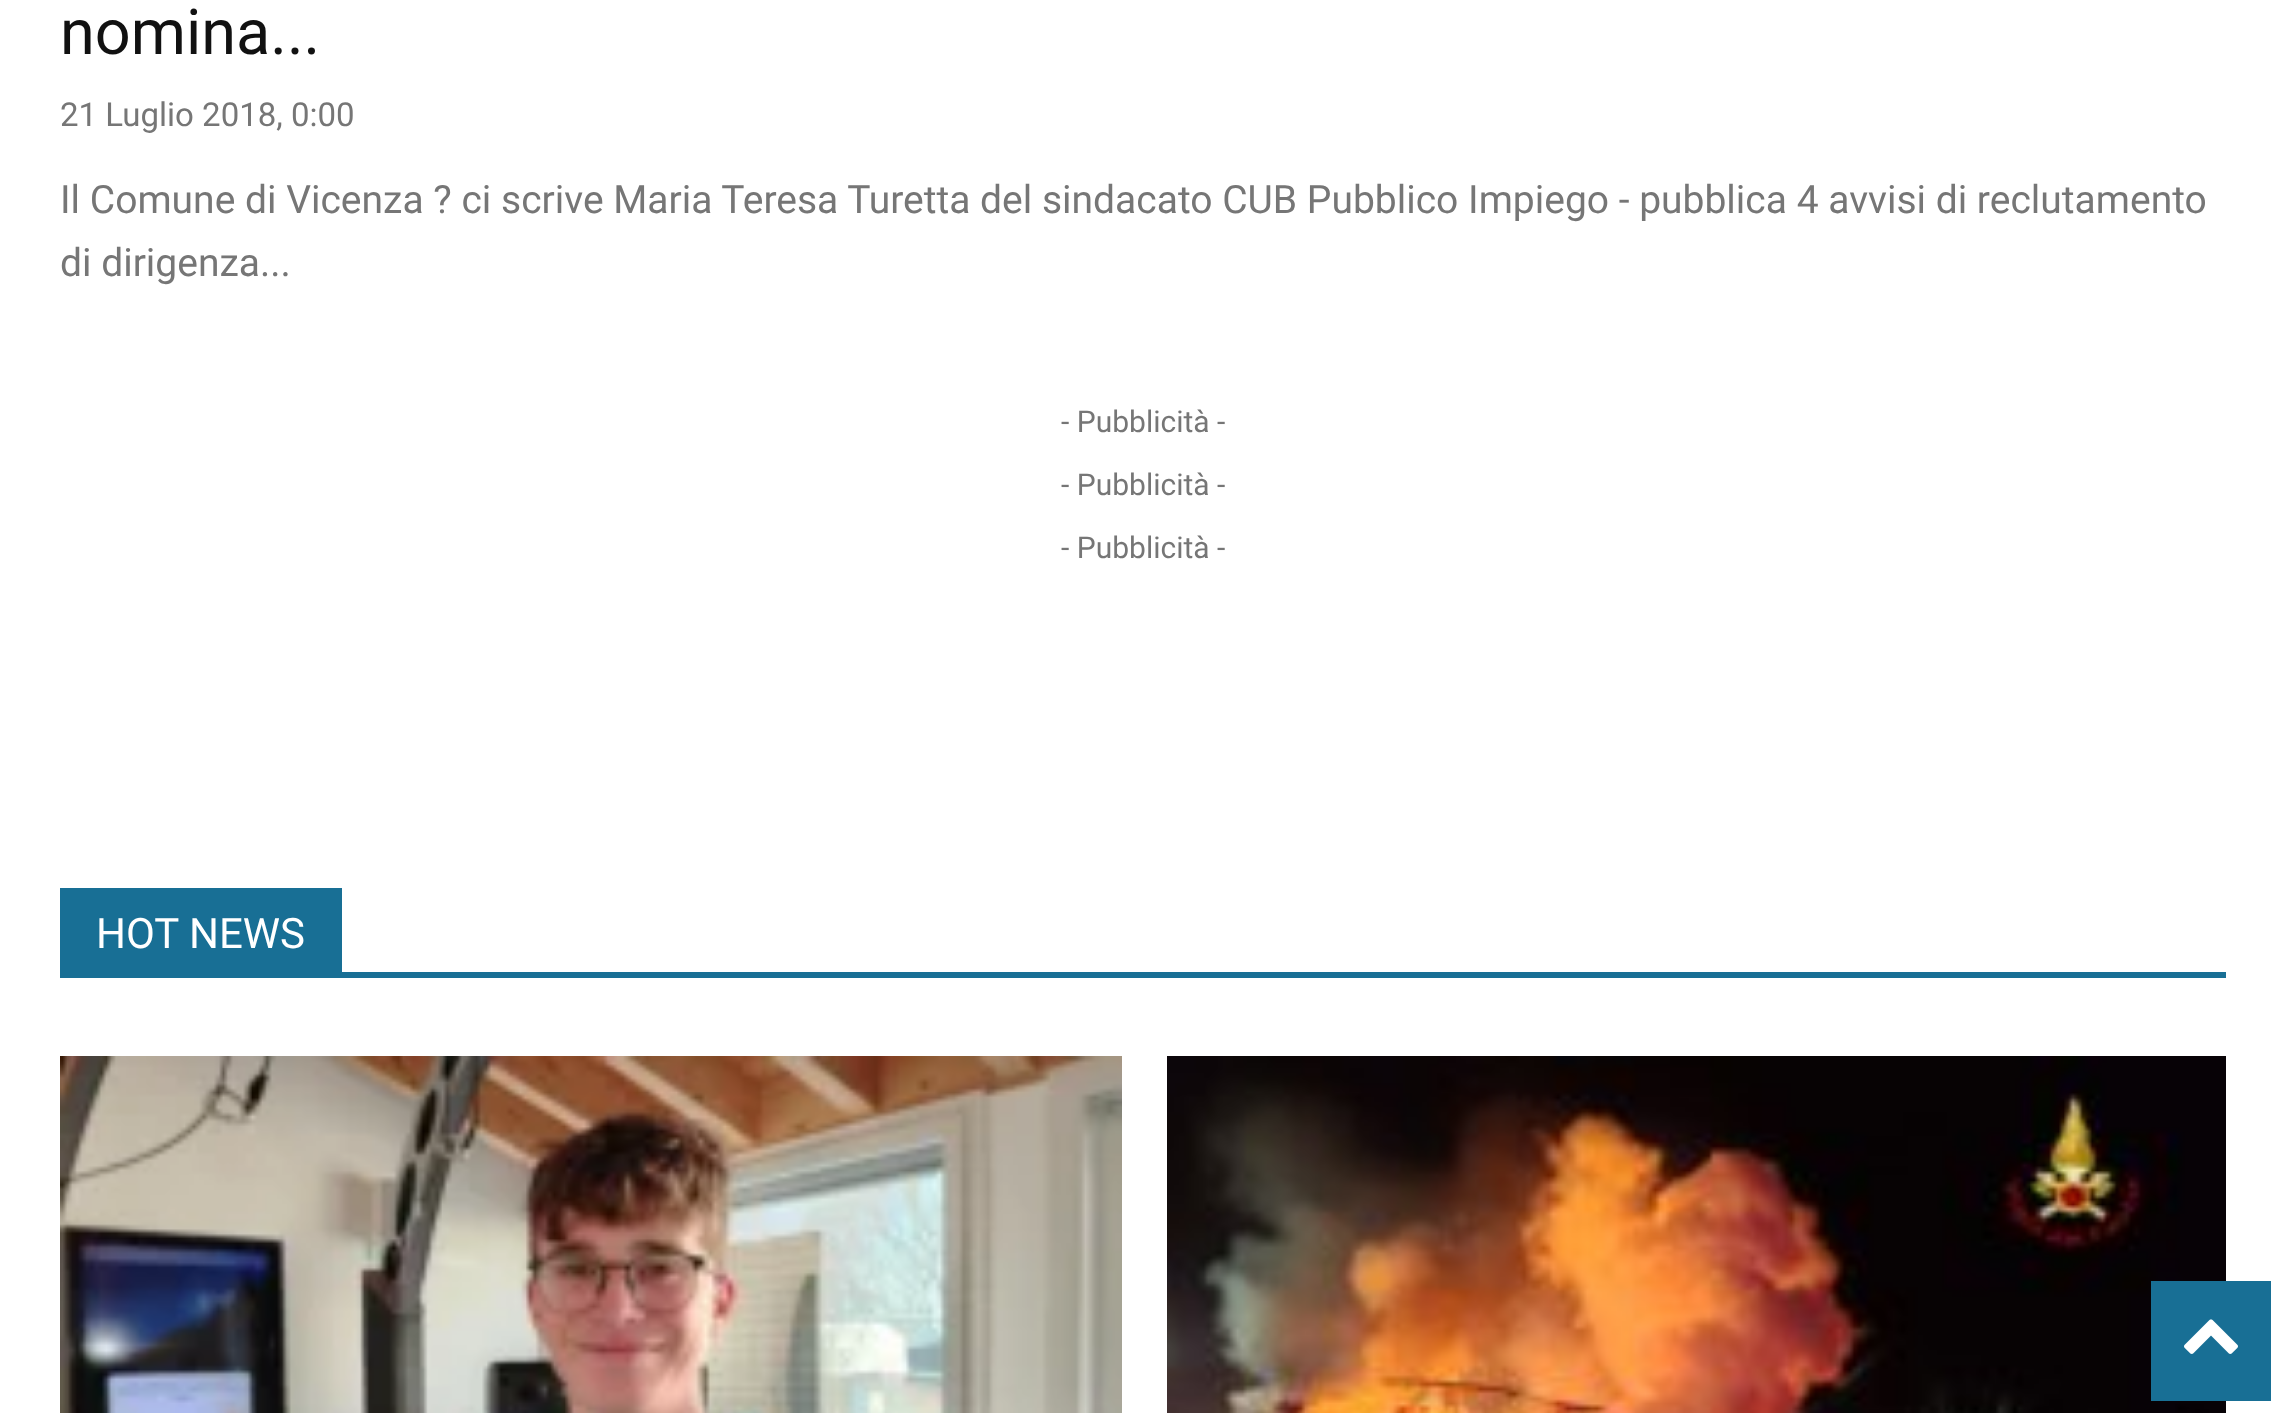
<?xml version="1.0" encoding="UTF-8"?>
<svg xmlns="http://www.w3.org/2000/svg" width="2284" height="1413">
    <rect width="100%" height="100%" fill="#FFFFFF"/>
    <text x="60" y="54" font-family="Roboto" font-size="63" fill="#111111">nomina...</text>
    <text x="60" y="126" font-family="Roboto" font-size="33" fill="#767676">21 Luglio 2018, 0:00</text>
    <text font-family="Roboto" font-size="39" fill="#767676">
        <tspan x="60" y="213">Il Comune di Vicenza ? ci scrive Maria Teresa Turetta del sindacato CUB Pubblico Impiego - pubblica 4 avvisi di reclutamento</tspan>
        <tspan x="60" y="276">di dirigenza...</tspan>
    </text>
    <text x="1061" y="432" font-family="Roboto" font-size="30" fill="#767676">- Pubblicità -</text>
    <text x="1061" y="495" font-family="Roboto" font-size="30" fill="#767676">- Pubblicità -</text>
    <text x="1061" y="558" font-family="Roboto" font-size="30" fill="#767676">- Pubblicità -</text>
    <rect x="60" y="972" width="2166" height="6" fill="#186F95"/>
    <rect x="60" y="888" width="282" height="84" fill="#186F95"/>
    <text x="96" y="948" font-family="Roboto" font-size="42" fill="#FFFFFF">HOT NEWS</text>
    <image x="60" y="1056" width="1062" height="357" href="img_01.png"/>
    <image x="1167" y="1056" width="1059" height="357" href="img_02.png"/>
    <rect x="2151" y="1281" width="120" height="120" fill="#186F95"/>
    <image x="2184" y="1319" width="54" height="35" href="img_03.png"/>
</svg>
